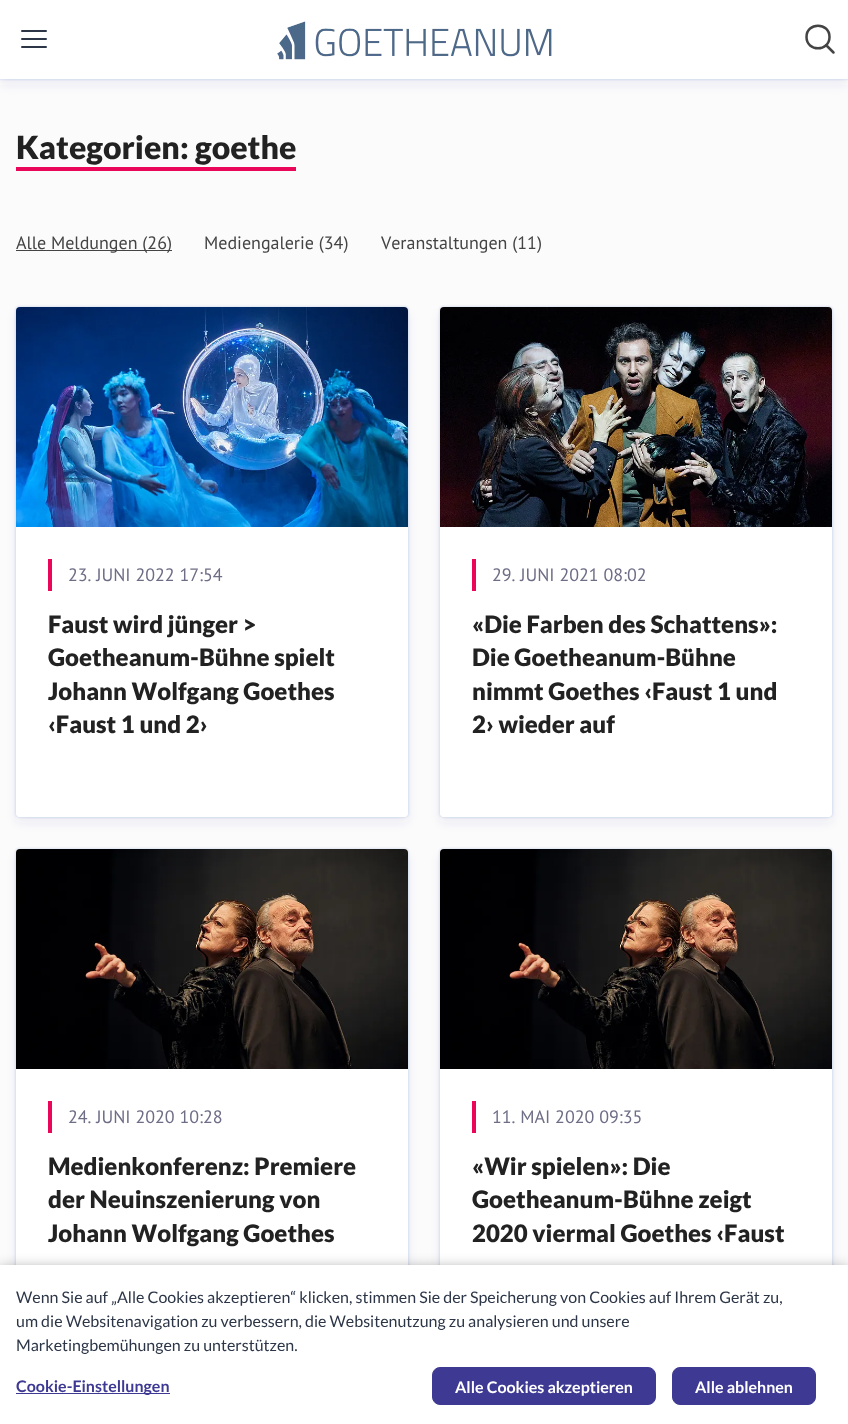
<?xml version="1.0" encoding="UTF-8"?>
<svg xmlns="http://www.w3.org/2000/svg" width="848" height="1424">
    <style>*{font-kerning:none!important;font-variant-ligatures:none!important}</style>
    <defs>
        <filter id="blur1" x="-50%" y="-200%" width="200%" height="500%"><feGaussianBlur stdDeviation="1"/></filter>
        <filter id="blur2" x="-50%" y="-200%" width="200%" height="500%"><feGaussianBlur stdDeviation="1.5"/></filter>
        <filter id="blur3" x="-50%" y="-200%" width="200%" height="500%"><feGaussianBlur stdDeviation="5"/></filter>
        <linearGradient id="g1" gradientUnits="userSpaceOnUse" x1="212" y1="753" x2="212" y2="817"><stop offset="0" stop-color="#FFFFFF" stop-opacity="0"/><stop offset="0.25" stop-color="#FFFFFF" stop-opacity="0.7"/><stop offset="0.5" stop-color="#FFFFFF"/></linearGradient>
        <linearGradient id="g2" gradientUnits="userSpaceOnUse" x1="636" y1="753" x2="636" y2="817"><stop offset="0" stop-color="#FFFFFF" stop-opacity="0"/><stop offset="0.25" stop-color="#FFFFFF" stop-opacity="0.7"/><stop offset="0.5" stop-color="#FFFFFF"/></linearGradient>
        <filter id="blur4" x="-50%" y="-200%" width="200%" height="500%"><feGaussianBlur stdDeviation="7.5"/></filter>
    </defs>
    <rect width="100%" height="100%" fill="#FBFBFB"/>
    <rect x="0" y="0" width="848" height="79" fill="#3149A4" fill-opacity="0.14" filter="url(#blur1)"/>
    <rect x="0" y="0" width="848" height="79" fill="#3149A4" fill-opacity="0.1" filter="url(#blur2)"/>
    <rect x="0" y="6" width="848" height="79" fill="#3149A4" fill-opacity="0.08" filter="url(#blur3)"/>
    <rect x="0" y="0" width="848" height="79" fill="#FFFFFF"/>
    <path d="M 22 39 H 46 M 22 31 H 46 M 22 47 H 46" fill="none" stroke="#2C3647" stroke-width="2" stroke-linecap="round" stroke-linejoin="round"/>
    <image x="277" y="21" width="275" height="39" href="img_01.png"/>
    <path d="M 829.5 37 C 829.5 52 806.5 52 806.5 37 C 806.5 22 829.5 22 829.5 37 Z M 833.5 52.5 L 826 45" fill="none" stroke="#444444" stroke-width="2.5" stroke-linecap="round"/>
    <rect x="16" y="167" width="280" height="4" fill="#EA0658"/>
    <text x="16" y="159" font-family="Lato" font-size="32" font-weight="900" fill="#222222">Kategorien: goethe</text>
    <rect x="16" y="250" width="156" height="1" fill="#444444"/>
    <text x="16" y="249" font-family="PT Sans" font-size="18" fill="#444444">Alle Meldungen (26)</text>
    <text x="204" y="249" font-family="PT Sans" font-size="18" fill="#444444">Mediengalerie (34)</text>
    <text x="381" y="249" font-family="PT Sans" font-size="18" fill="#444444">Veranstaltungen (11)</text>
    <rect x="16" y="307" width="392" height="510" rx="4" fill="#3149A4" fill-opacity="0.14" filter="url(#blur1)"/>
    <rect x="16" y="307" width="392" height="510" rx="4" fill="#3149A4" fill-opacity="0.1" filter="url(#blur2)"/>
    <rect x="16" y="313" width="392" height="510" rx="4" fill="#3149A4" fill-opacity="0.08" filter="url(#blur3)"/>
    <rect x="16" y="307" width="392" height="510" rx="4" fill="#FFFFFF"/>
    <image x="16" y="307" width="392" height="4" href="img_02.png"/>
    <image x="16" y="307" width="392" height="220" href="img_03.png"/>
    <rect x="48" y="559" width="4" height="32" fill="#EA0658"/>
    <text x="68" y="581" font-family="PT Sans" font-size="18" fill="#6E6D86">23. JUNI 2022 17:54</text>
    <text font-family="Lato" font-size="24" font-weight="900" fill="#222222">
        <tspan x="48" y="633">Faust wird jünger &gt;</tspan>
        <tspan x="48" y="666">Goetheanum-Bühne spielt</tspan>
        <tspan x="48" y="700">Johann Wolfgang Goethes</tspan>
        <tspan x="48" y="733">‹Faust 1 und 2›</tspan>
    </text>
    <path d="M 16 753 H 408 V 813 C 408 815 406 817 404 817 H 20 C 18 817 16 815 16 813 Z" fill="url(#g1)"/>
    <rect x="440" y="307" width="392" height="510" rx="4" fill="#3149A4" fill-opacity="0.14" filter="url(#blur1)"/>
    <rect x="440" y="307" width="392" height="510" rx="4" fill="#3149A4" fill-opacity="0.1" filter="url(#blur2)"/>
    <rect x="440" y="313" width="392" height="510" rx="4" fill="#3149A4" fill-opacity="0.08" filter="url(#blur3)"/>
    <rect x="440" y="307" width="392" height="510" rx="4" fill="#FFFFFF"/>
    <image x="440" y="307" width="392" height="4" href="img_02.png"/>
    <image x="440" y="307" width="392" height="220" href="img_04.png"/>
    <rect x="472" y="559" width="4" height="32" fill="#EA0658"/>
    <text x="492" y="581" font-family="PT Sans" font-size="18" fill="#6E6D86">29. JUNI 2021 08:02</text>
    <text font-family="Lato" font-size="24" font-weight="900" fill="#222222">
        <tspan x="472" y="633">«Die Farben des Schattens»:</tspan>
        <tspan x="472" y="666">Die Goetheanum-Bühne</tspan>
        <tspan x="472" y="700">nimmt Goethes ‹Faust 1 und</tspan>
        <tspan x="472" y="733">2› wieder auf</tspan>
    </text>
    <path d="M 440 753 H 832 V 813 C 832 815 830 817 828 817 H 444 C 442 817 440 815 440 813 Z" fill="url(#g2)"/>
    <rect x="16" y="849" width="392" height="510" rx="4" fill="#3149A4" fill-opacity="0.14" filter="url(#blur1)"/>
    <rect x="16" y="849" width="392" height="510" rx="4" fill="#3149A4" fill-opacity="0.1" filter="url(#blur2)"/>
    <rect x="16" y="855" width="392" height="510" rx="4" fill="#3149A4" fill-opacity="0.08" filter="url(#blur3)"/>
    <rect x="16" y="849" width="392" height="510" rx="4" fill="#FFFFFF"/>
    <image x="16" y="849" width="392" height="4" href="img_02.png"/>
    <image x="16" y="849" width="392" height="220" href="img_05.png"/>
    <rect x="48" y="1101" width="4" height="32" fill="#EA0658"/>
    <text x="68" y="1123" font-family="PT Sans" font-size="18" fill="#6E6D86">24. JUNI 2020 10:28</text>
    <text font-family="Lato" font-size="24" font-weight="900" fill="#222222">
        <tspan x="48" y="1175">Medienkonferenz: Premiere</tspan>
        <tspan x="48" y="1208">der Neuinszenierung von</tspan>
        <tspan x="48" y="1242">Johann Wolfgang Goethes</tspan>
    </text>
    <rect x="440" y="849" width="392" height="510" rx="4" fill="#3149A4" fill-opacity="0.14" filter="url(#blur1)"/>
    <rect x="440" y="849" width="392" height="510" rx="4" fill="#3149A4" fill-opacity="0.1" filter="url(#blur2)"/>
    <rect x="440" y="855" width="392" height="510" rx="4" fill="#3149A4" fill-opacity="0.08" filter="url(#blur3)"/>
    <rect x="440" y="849" width="392" height="510" rx="4" fill="#FFFFFF"/>
    <image x="440" y="849" width="392" height="4" href="img_02.png"/>
    <image x="440" y="849" width="392" height="220" href="img_06.png"/>
    <rect x="472" y="1101" width="4" height="32" fill="#EA0658"/>
    <text x="492" y="1123" font-family="PT Sans" font-size="18" fill="#6E6D86">11. MAI 2020 09:35</text>
    <text font-family="Lato" font-size="24" font-weight="900" fill="#222222">
        <tspan x="472" y="1175">«Wir spielen»: Die</tspan>
        <tspan x="472" y="1208">Goetheanum-Bühne zeigt</tspan>
        <tspan x="472" y="1242">2020 viermal Goethes ‹Faust</tspan>
    </text>
    <rect x="0" y="1270" width="848" height="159" fill="#000000" fill-opacity="0.5" filter="url(#blur4)"/>
    <rect x="0" y="1265" width="848" height="159" fill="#FFFFFF"/>
    <text font-family="Lato" font-size="16" fill="#2C3647">
        <tspan x="16" y="1303">Wenn Sie auf „Alle Cookies akzeptieren“ klicken, stimmen Sie der Speicherung von Cookies auf Ihrem Gerät zu,</tspan>
        <tspan x="16" y="1327">um die Websitenavigation zu verbessern, die Websitenutzung zu analysieren und unsere</tspan>
        <tspan x="16" y="1351">Marketingbemühungen zu unterstützen.</tspan>
    </text>
    <rect x="16" y="1393" width="154" height="1" fill="#3E3A93"/>
    <text x="16" y="1392" font-family="Lato" font-size="16" font-weight="700" fill="#3E3A93">Cookie-Einstellungen</text>
    <rect x="432.5" y="1367.5" width="223" height="37" rx="7.5" fill="#3E3A93" stroke="#3E3A93"/>
    <text x="455" y="1393" font-family="Lato" font-size="16" font-weight="700" fill="#FFFFFF">Alle Cookies akzeptieren</text>
    <rect x="672.5" y="1367.5" width="143" height="37" rx="7.5" fill="#3E3A93" stroke="#3E3A93"/>
    <text x="695" y="1393" font-family="Lato" font-size="16" font-weight="700" fill="#FFFFFF">Alle ablehnen</text>
</svg>
